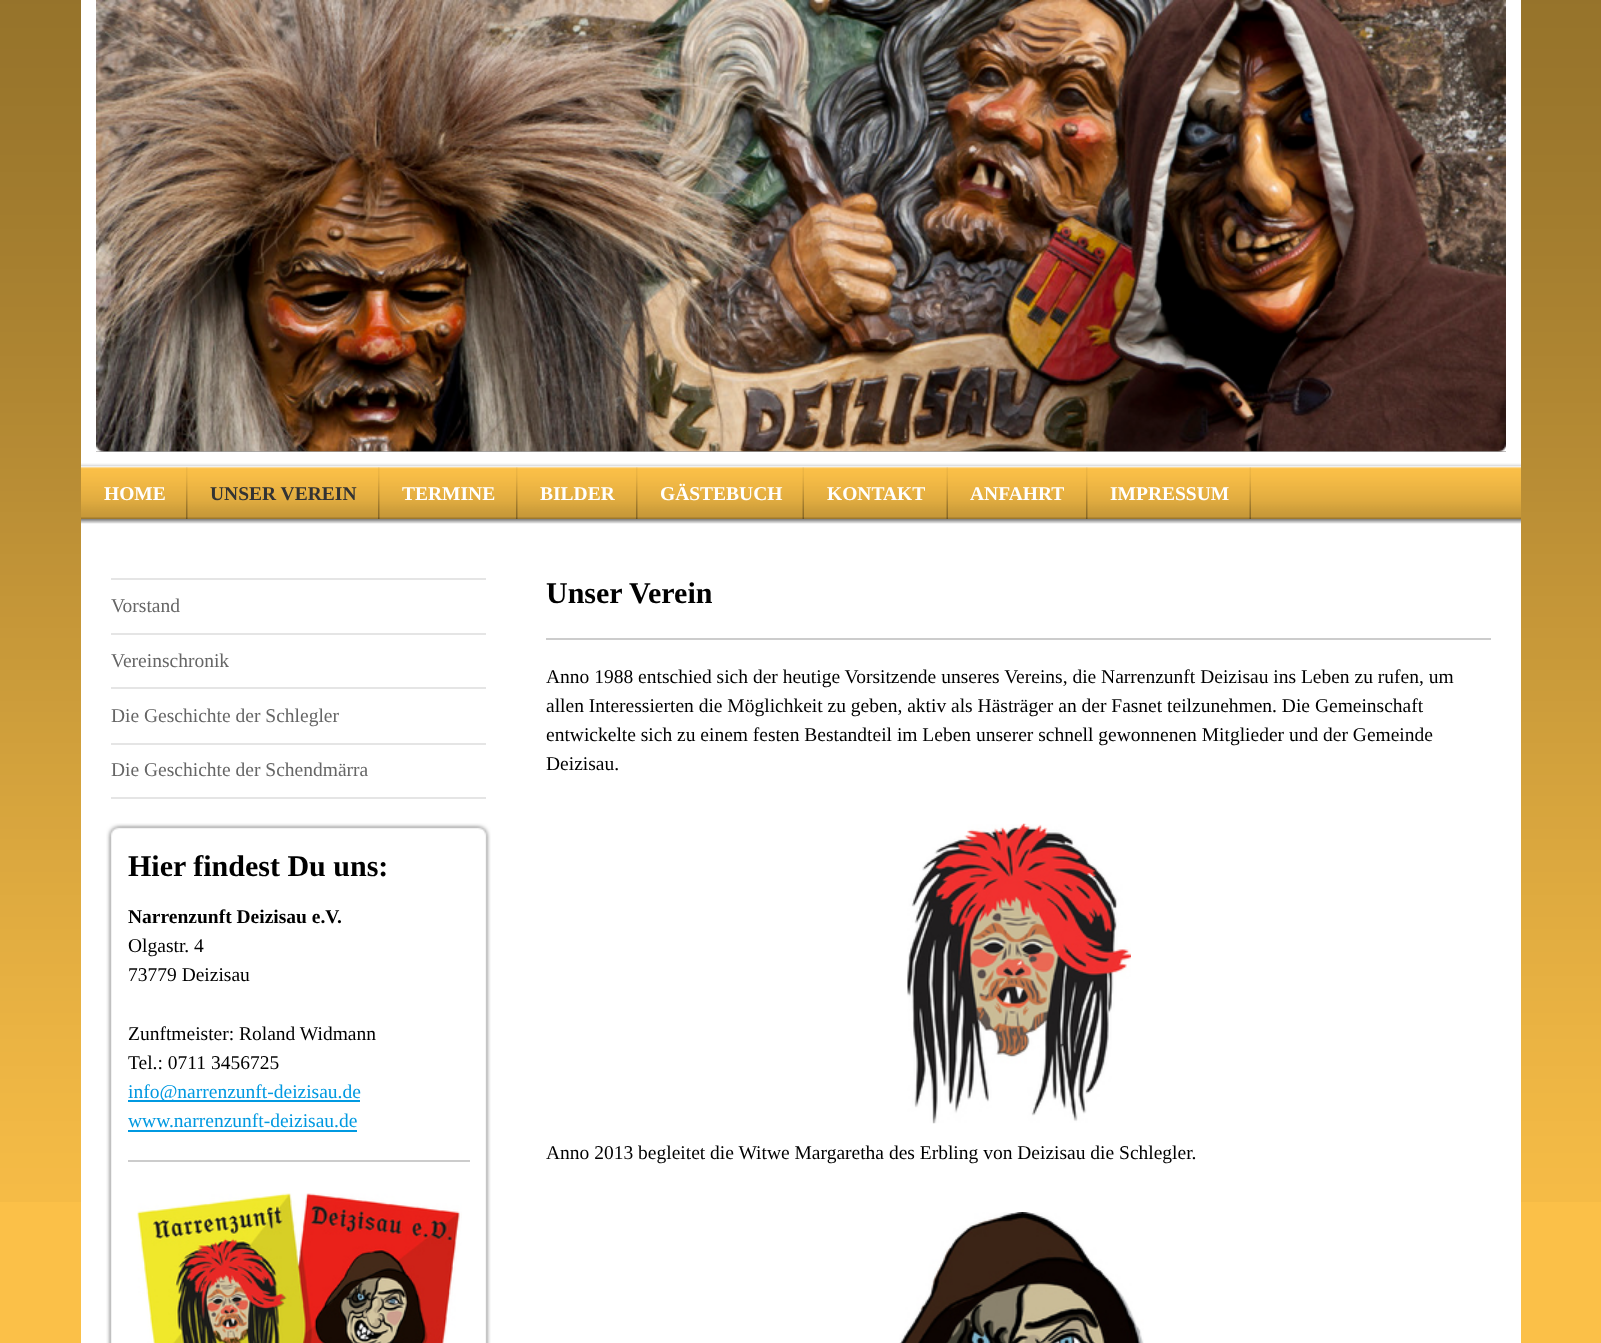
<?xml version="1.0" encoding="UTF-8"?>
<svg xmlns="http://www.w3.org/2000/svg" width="1601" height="1343">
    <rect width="100%" height="100%" fill="#FBC048"/>
    <image x="0" y="0" width="1601" height="1202" href="img_01.png"/>
    <rect x="81" y="0" width="1440" height="1343" fill="#FFFFFF"/>
    <rect x="96" y="451" width="1410" height="1" fill="#A0A0A0"/>
    <image x="96" y="0" width="1410" height="452" href="img_02.png"/>
    <image x="96" y="444" width="8" height="8" href="img_03.png"/>
    <image x="1498" y="444" width="8" height="8" href="img_04.png"/>
    <image x="81" y="463" width="1440" height="4" href="img_05.png"/>
    <rect x="81" y="467" width="1440" height="52" fill="#FBC048"/>
    <image x="81" y="466" width="1440" height="53" href="img_06.png"/>
    <image x="186" y="467" width="2" height="52" href="img_07.png"/>
    <text x="104" y="500" font-family="Liberation Serif" font-size="19.5" font-weight="700" fill="#FFFFFF">HOME</text>
    <image x="378" y="467" width="2" height="52" href="img_08.png"/>
    <text x="210" y="500" font-family="Liberation Serif" font-size="19.5" font-weight="700" fill="#333333">UNSER VEREIN</text>
    <image x="516" y="467" width="2" height="52" href="img_09.png"/>
    <text x="402" y="500" font-family="Liberation Serif" font-size="19.5" font-weight="700" fill="#FFFFFF">TERMINE</text>
    <image x="636" y="467" width="2" height="52" href="img_09.png"/>
    <text x="540" y="500" font-family="Liberation Serif" font-size="19.5" font-weight="700" fill="#FFFFFF">BILDER</text>
    <image x="802" y="467" width="2" height="52" href="img_10.png"/>
    <text x="660" y="500" font-family="Liberation Serif" font-size="19.5" font-weight="700" fill="#FFFFFF">GÄSTEBUCH</text>
    <image x="946" y="467" width="2" height="52" href="img_11.png"/>
    <text x="827" y="500" font-family="Liberation Serif" font-size="19.5" font-weight="700" fill="#FFFFFF">KONTAKT</text>
    <image x="1086" y="467" width="2" height="52" href="img_07.png"/>
    <text x="970" y="500" font-family="Liberation Serif" font-size="19.5" font-weight="700" fill="#FFFFFF">ANFAHRT</text>
    <image x="1249" y="467" width="2" height="52" href="img_11.png"/>
    <text x="1110" y="500" font-family="Liberation Serif" font-size="19.5" font-weight="700" fill="#FFFFFF">IMPRESSUM</text>
    <image x="81" y="519" width="1440" height="5" href="img_12.png"/>
    <rect x="111" y="578" width="375" height="2" fill="#E5E5E5"/>
    <text x="111" y="612" font-family="Liberation Serif" font-size="19.5" fill="#666666">Vorstand</text>
    <rect x="111" y="633" width="375" height="2" fill="#E5E5E5"/>
    <text x="111" y="667" font-family="Liberation Serif" font-size="19.5" fill="#666666">Vereinschronik</text>
    <rect x="111" y="687" width="375" height="2" fill="#E5E5E5"/>
    <text x="111" y="722" font-family="Liberation Serif" font-size="19.5" fill="#666666">Die Geschichte der Schlegler</text>
    <rect x="111" y="743" width="375" height="2" fill="#E5E5E5"/>
    <rect x="111" y="797" width="375" height="2" fill="#E5E5E5"/>
    <text x="111" y="776" font-family="Liberation Serif" font-size="19.5" fill="#666666">Die Geschichte der Schendmärra</text>
    <image x="106" y="823" width="385" height="14" href="img_13.png"/>
    <image x="106" y="837" width="385" height="506" href="img_14.png"/>
    <text x="128" y="876" font-family="Liberation Serif" font-size="30" font-weight="700" fill="#000000">Hier findest Du uns:</text>
    <text x="128" y="923" font-family="Liberation Serif" font-size="19.5" font-weight="700" fill="#000000">Narrenzunft Deizisau e.V.</text>
    <text font-family="Liberation Serif" font-size="19.5" fill="#000000">
        <tspan x="128" y="952">Olgastr. 4</tspan>
        <tspan x="128" y="981">73779 Deizisau</tspan>
    </text>
    <text font-family="Liberation Serif" font-size="19.5" fill="#000000">
        <tspan x="128" y="1040">Zunftmeister: Roland Widmann</tspan>
        <tspan x="128" y="1069">Tel.: 0711 3456725</tspan>
    </text>
    <rect x="128" y="1100" width="232" height="2" fill="#0099E1"/>
    <text font-family="Liberation Serif" font-size="19.5" fill="#0099E1">
        <tspan x="128" y="1098">info@narrenzunft-deizisau.de</tspan>
        <tspan x="128" y="1127">www.narrenzunft-deizisau.de</tspan>
    </text>
    <rect x="128" y="1130" width="229" height="2" fill="#0099E1"/>
    <rect x="128" y="1160" width="342" height="2" fill="#CCCCCC"/>
    <image x="137" y="1193" width="325" height="150" href="img_15.png"/>
    <text x="546" y="603" font-family="Liberation Serif" font-size="30" font-weight="700" fill="#000000">Unser Verein</text>
    <rect x="546" y="638" width="945" height="2" fill="#CCCCCC"/>
    <text font-family="Liberation Serif" font-size="19.5" fill="#000000">
        <tspan x="546" y="683">Anno 1988 entschied sich der heutige Vorsitzende unseres Vereins, die Narrenzunft Deizisau ins Leben zu rufen, um</tspan>
        <tspan x="546" y="712">allen Interessierten die Möglichkeit zu geben, aktiv als Hästräger an der Fasnet teilzunehmen. Die Gemeinschaft</tspan>
        <tspan x="546" y="741">entwickelte sich zu einem festen Bestandteil im Leben unserer schnell gewonnenen Mitglieder und der Gemeinde</tspan>
        <tspan x="546" y="770">Deizisau.</tspan>
    </text>
    <image x="907" y="823" width="224" height="301" href="img_16.png"/>
    <text x="546" y="1159" font-family="Liberation Serif" font-size="19.5" fill="#000000">Anno 2013 begleitet die Witwe Margaretha des Erbling von Deizisau die Schlegler.</text>
    <image x="899" y="1212" width="245" height="131" href="img_17.png"/>
</svg>
